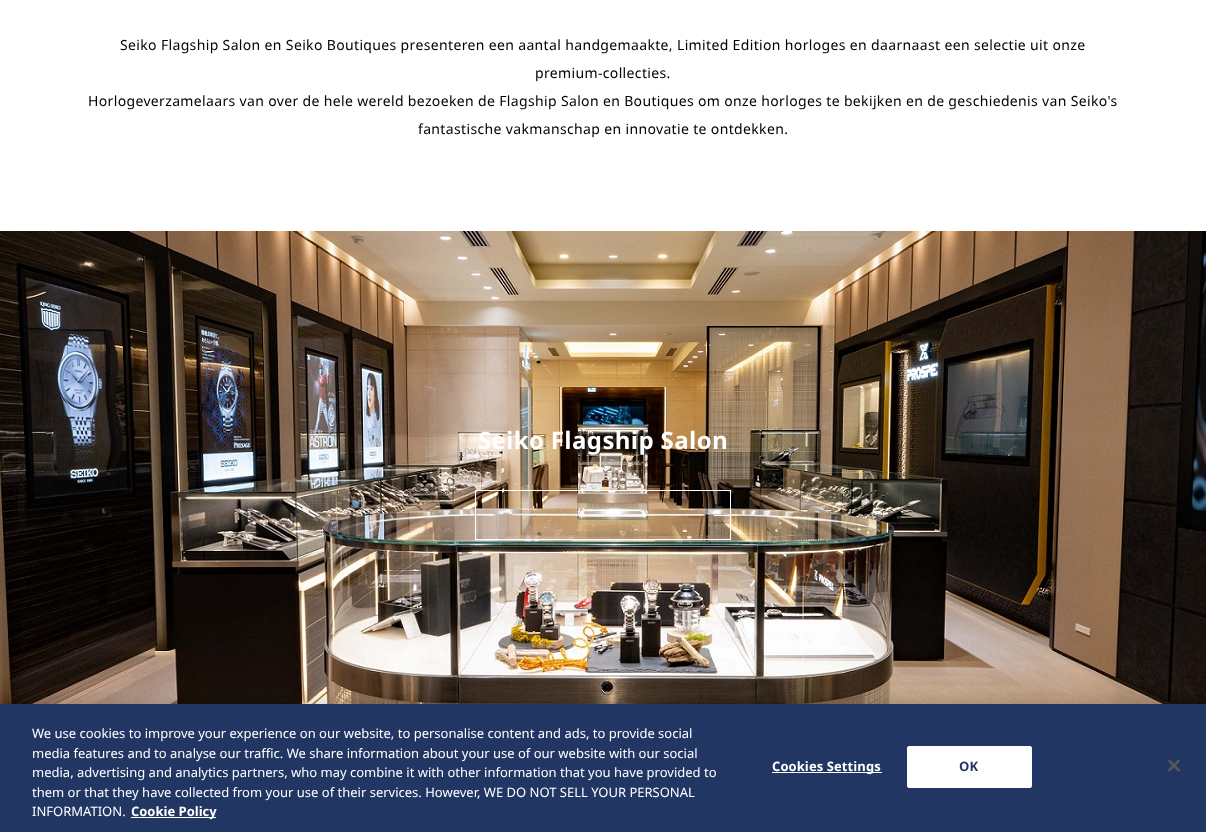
<?xml version="1.0" encoding="UTF-8"?>
<svg xmlns="http://www.w3.org/2000/svg" width="1206" height="832">
    <defs>
        <filter id="blur1" x="-50%" y="-200%" width="200%" height="500%"><feGaussianBlur stdDeviation="9"/></filter>
    </defs>
    <rect width="100%" height="100%" fill="#FFFFFF"/>
    <text x="120" y="50" font-family="Noto Sans" font-size="14" letter-spacing="0.35" fill="#000000">Seiko Flagship Salon en Seiko Boutiques presenteren een aantal handgemaakte, Limited Edition horloges en daarnaast een selectie uit onze</text>
    <text x="535" y="78" font-family="Noto Sans" font-size="14" letter-spacing="0.35" fill="#000000">premium-collecties.</text>
    <text x="88" y="106" font-family="Noto Sans" font-size="14" letter-spacing="0.35" fill="#000000">Horlogeverzamelaars van over de hele wereld bezoeken de Flagship Salon en Boutiques om onze horloges te bekijken en de geschiedenis van Seiko's</text>
    <text x="418" y="134" font-family="Noto Sans" font-size="14" letter-spacing="0.35" fill="#000000">fantastische vakmanschap en innovatie te ontdekken.</text>
    <image x="0" y="231" width="1206" height="473" href="img_01.png"/>
    <text x="478" y="449" font-family="Noto Sans" font-size="24" font-weight="700" letter-spacing="0.35" fill="#FFFFFF">Seiko Flagship Salon</text>
    <rect x="475.5" y="490.5" width="255" height="49" fill="none" stroke="#FFFFFF"/>
    <rect x="714" y="515" width="16" height="1" fill="#FFFFFF"/>
    <rect x="0" y="704" width="1206" height="128" fill="#000000" fill-opacity="0.2" filter="url(#blur1)"/>
    <rect x="0" y="704" width="1206" height="128" fill="#213662"/>
    <text font-family="Noto Sans" font-size="13" fill="#FFFFFF">
        <tspan x="32" y="738">We use cookies to improve your experience on our website, to personalise content and ads, to provide social</tspan>
        <tspan x="32" y="758">media features and to analyse our traffic. We share information about your use of our website with our social</tspan>
        <tspan x="32" y="777">media, advertising and analytics partners, who may combine it with other information that you have provided to</tspan>
        <tspan x="32" y="797">them or that they have collected from your use of their services. However, WE DO NOT SELL YOUR PERSONAL</tspan>
        <tspan x="32" y="816">INFORMATION.</tspan>
    </text>
    <rect x="131" y="817" width="85" height="1" fill="#FFFFFF"/>
    <text x="131" y="816" font-family="Noto Sans" font-size="13" font-weight="700" fill="#FFFFFF">Cookie Policy</text>
    <rect x="772" y="772" width="110" height="1" fill="#FFFFFF"/>
    <text x="772" y="771" font-family="Noto Sans" font-size="13" font-weight="700" letter-spacing="0.1" fill="#FFFFFF">Cookies Settings</text>
    <rect x="907.5" y="746.5" width="124" height="41" rx="1.5" fill="#FFFFFF" stroke="#FFFFFF"/>
    <text x="959" y="771" font-family="Noto Sans" font-size="13" font-weight="700" letter-spacing="0.1" fill="#213662">OK</text>
    <image x="1168" y="760" width="12" height="12" href="img_02.png"/>
</svg>
